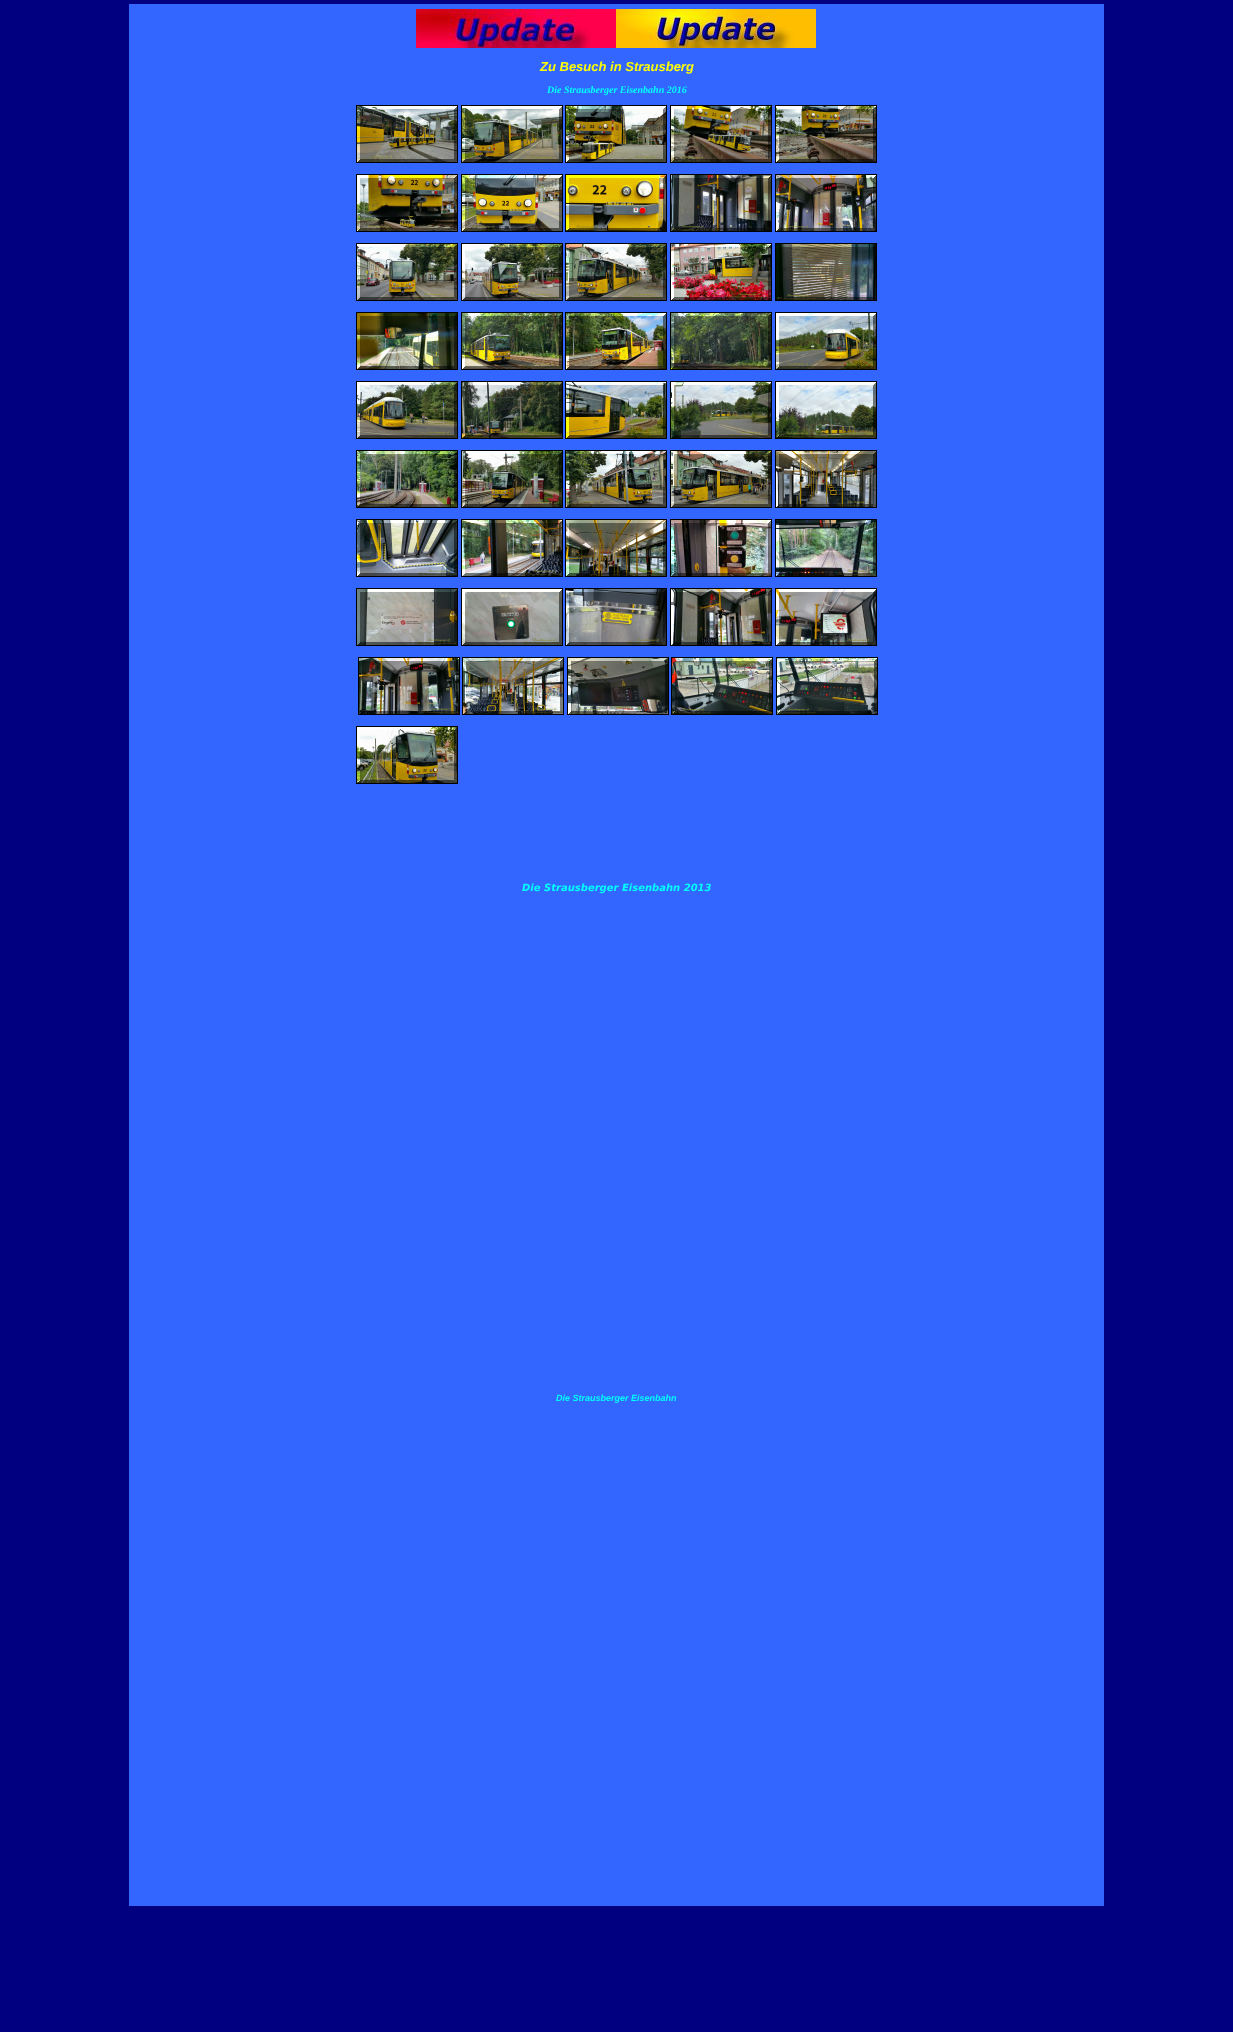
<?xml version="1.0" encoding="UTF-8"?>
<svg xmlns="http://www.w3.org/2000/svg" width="1233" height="2032">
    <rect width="100%" height="100%" fill="#000080"/>
    <rect x="129" y="4" width="975" height="1902" fill="#3366FF"/>
    <image x="416" y="9" width="200" height="39" href="img_01.png"/>
    <image x="616" y="9" width="200" height="39" href="img_02.png"/>
    <text x="540" y="71" font-family="Liberation Sans" font-size="13" font-weight="700" font-style="italic" fill="#FFFF00">Zu Besuch in Strausberg</text>
    <text x="547" y="93" font-family="Liberation Serif" font-size="10" font-weight="700" font-style="italic" fill="#00FFFF">Die Strausberger Eisenbahn 2016</text>
    <rect x="356.5" y="105.5" width="101" height="57" fill="none" stroke="#000000"/>
    <rect x="461.5" y="105.5" width="101" height="57" fill="none" stroke="#000000"/>
    <rect x="565.5" y="105.5" width="101" height="57" fill="none" stroke="#000000"/>
    <rect x="670.5" y="105.5" width="101" height="57" fill="none" stroke="#000000"/>
    <rect x="775.5" y="105.5" width="101" height="57" fill="none" stroke="#000000"/>
    <image x="357" y="106" width="100" height="56" href="img_03.png"/>
    <image x="462" y="106" width="100" height="56" href="img_04.png"/>
    <image x="566" y="106" width="100" height="56" href="img_05.png"/>
    <image x="671" y="106" width="100" height="56" href="img_06.png"/>
    <image x="776" y="106" width="100" height="56" href="img_07.png"/>
    <rect x="356.5" y="174.5" width="101" height="57" fill="none" stroke="#000000"/>
    <rect x="461.5" y="174.5" width="101" height="57" fill="none" stroke="#000000"/>
    <rect x="565.5" y="174.5" width="101" height="57" fill="none" stroke="#000000"/>
    <rect x="670.5" y="174.5" width="101" height="57" fill="none" stroke="#000000"/>
    <rect x="775.5" y="174.5" width="101" height="57" fill="none" stroke="#000000"/>
    <image x="357" y="175" width="100" height="56" href="img_08.png"/>
    <image x="462" y="175" width="100" height="56" href="img_09.png"/>
    <image x="566" y="175" width="100" height="56" href="img_10.png"/>
    <image x="671" y="175" width="100" height="56" href="img_11.png"/>
    <image x="776" y="175" width="100" height="56" href="img_12.png"/>
    <rect x="356.5" y="243.5" width="101" height="57" fill="none" stroke="#000000"/>
    <rect x="461.5" y="243.5" width="101" height="57" fill="none" stroke="#000000"/>
    <rect x="565.5" y="243.5" width="101" height="57" fill="none" stroke="#000000"/>
    <rect x="670.5" y="243.5" width="101" height="57" fill="none" stroke="#000000"/>
    <rect x="775.5" y="243.5" width="101" height="57" fill="none" stroke="#000000"/>
    <image x="357" y="244" width="100" height="56" href="img_13.png"/>
    <image x="462" y="244" width="100" height="56" href="img_14.png"/>
    <image x="566" y="244" width="100" height="56" href="img_15.png"/>
    <image x="671" y="244" width="100" height="56" href="img_16.png"/>
    <image x="776" y="244" width="100" height="56" href="img_17.png"/>
    <rect x="356.5" y="312.5" width="101" height="57" fill="none" stroke="#000000"/>
    <rect x="461.5" y="312.5" width="101" height="57" fill="none" stroke="#000000"/>
    <rect x="565.5" y="312.5" width="101" height="57" fill="none" stroke="#000000"/>
    <rect x="670.5" y="312.5" width="101" height="57" fill="none" stroke="#000000"/>
    <rect x="775.5" y="312.5" width="101" height="57" fill="none" stroke="#000000"/>
    <image x="357" y="313" width="100" height="56" href="img_18.png"/>
    <image x="462" y="313" width="100" height="56" href="img_19.png"/>
    <image x="566" y="313" width="100" height="56" href="img_20.png"/>
    <image x="671" y="313" width="100" height="56" href="img_21.png"/>
    <image x="776" y="313" width="100" height="56" href="img_22.png"/>
    <rect x="356.5" y="381.5" width="101" height="57" fill="none" stroke="#000000"/>
    <rect x="461.5" y="381.5" width="101" height="57" fill="none" stroke="#000000"/>
    <rect x="565.5" y="381.5" width="101" height="57" fill="none" stroke="#000000"/>
    <rect x="670.5" y="381.5" width="101" height="57" fill="none" stroke="#000000"/>
    <rect x="775.5" y="381.5" width="101" height="57" fill="none" stroke="#000000"/>
    <image x="357" y="382" width="100" height="56" href="img_23.png"/>
    <image x="462" y="382" width="100" height="56" href="img_24.png"/>
    <image x="566" y="382" width="100" height="56" href="img_25.png"/>
    <image x="671" y="382" width="100" height="56" href="img_26.png"/>
    <image x="776" y="382" width="100" height="56" href="img_27.png"/>
    <rect x="356.5" y="450.5" width="101" height="57" fill="none" stroke="#000000"/>
    <rect x="461.5" y="450.5" width="101" height="57" fill="none" stroke="#000000"/>
    <rect x="565.5" y="450.5" width="101" height="57" fill="none" stroke="#000000"/>
    <rect x="670.5" y="450.5" width="101" height="57" fill="none" stroke="#000000"/>
    <rect x="775.5" y="450.5" width="101" height="57" fill="none" stroke="#000000"/>
    <image x="357" y="451" width="100" height="56" href="img_28.png"/>
    <image x="462" y="451" width="100" height="56" href="img_29.png"/>
    <image x="566" y="451" width="100" height="56" href="img_30.png"/>
    <image x="671" y="451" width="100" height="56" href="img_31.png"/>
    <image x="776" y="451" width="100" height="56" href="img_32.png"/>
    <rect x="356.5" y="519.5" width="101" height="57" fill="none" stroke="#000000"/>
    <rect x="461.5" y="519.5" width="101" height="57" fill="none" stroke="#000000"/>
    <rect x="565.5" y="519.5" width="101" height="57" fill="none" stroke="#000000"/>
    <rect x="670.5" y="519.5" width="101" height="57" fill="none" stroke="#000000"/>
    <rect x="775.5" y="519.5" width="101" height="57" fill="none" stroke="#000000"/>
    <image x="357" y="520" width="100" height="56" href="img_33.png"/>
    <image x="462" y="520" width="100" height="56" href="img_34.png"/>
    <image x="566" y="520" width="100" height="56" href="img_35.png"/>
    <image x="671" y="520" width="100" height="56" href="img_36.png"/>
    <image x="776" y="520" width="100" height="56" href="img_37.png"/>
    <rect x="356.5" y="588.5" width="101" height="57" fill="none" stroke="#000000"/>
    <rect x="461.5" y="588.5" width="101" height="57" fill="none" stroke="#000000"/>
    <rect x="565.5" y="588.5" width="101" height="57" fill="none" stroke="#000000"/>
    <rect x="670.5" y="588.5" width="101" height="57" fill="none" stroke="#000000"/>
    <rect x="775.5" y="588.5" width="101" height="57" fill="none" stroke="#000000"/>
    <image x="357" y="589" width="100" height="56" href="img_38.png"/>
    <image x="462" y="589" width="100" height="56" href="img_39.png"/>
    <image x="566" y="589" width="100" height="56" href="img_40.png"/>
    <image x="671" y="589" width="100" height="56" href="img_41.png"/>
    <image x="776" y="589" width="100" height="56" href="img_42.png"/>
    <rect x="358.5" y="657.5" width="101" height="57" fill="none" stroke="#000000"/>
    <rect x="462.5" y="657.5" width="101" height="57" fill="none" stroke="#000000"/>
    <rect x="567.5" y="657.5" width="101" height="57" fill="none" stroke="#000000"/>
    <rect x="671.5" y="657.5" width="101" height="57" fill="none" stroke="#000000"/>
    <rect x="776.5" y="657.5" width="101" height="57" fill="none" stroke="#000000"/>
    <image x="359" y="658" width="100" height="56" href="img_43.png"/>
    <image x="463" y="658" width="100" height="56" href="img_44.png"/>
    <image x="568" y="658" width="100" height="56" href="img_45.png"/>
    <image x="672" y="658" width="100" height="56" href="img_46.png"/>
    <image x="777" y="658" width="100" height="56" href="img_47.png"/>
    <rect x="356.5" y="726.5" width="101" height="57" fill="none" stroke="#000000"/>
    <image x="357" y="727" width="100" height="56" href="img_48.png"/>
    <text x="522" y="891" font-family="DejaVu Sans" font-size="10" font-weight="700" font-style="italic" fill="#00FFFF">Die Strausberger Eisenbahn 2013</text>
    <text x="556" y="1401" font-family="Liberation Sans" font-size="9" font-weight="700" font-style="italic" fill="#00FFFF">Die Strausberger Eisenbahn</text>
</svg>
